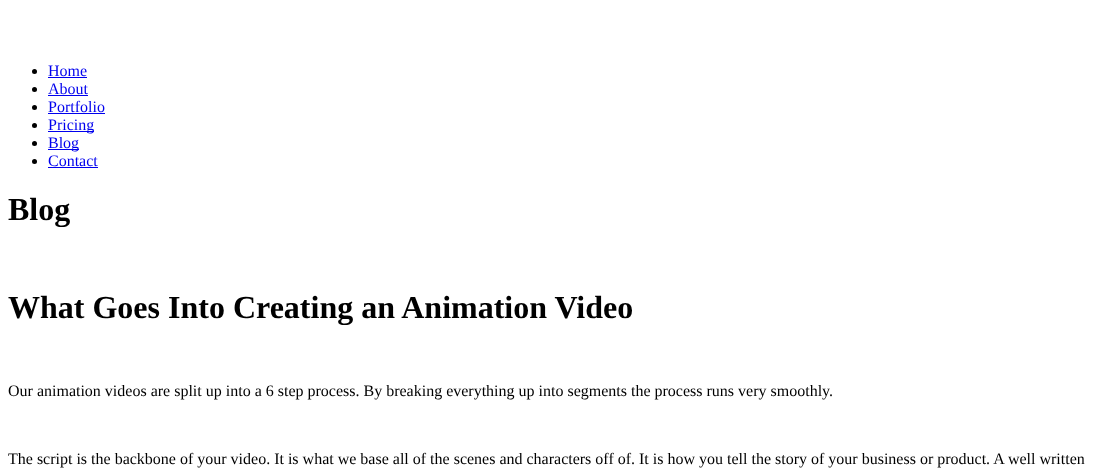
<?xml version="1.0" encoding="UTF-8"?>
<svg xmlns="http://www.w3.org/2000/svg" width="1116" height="473">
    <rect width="100%" height="100%" fill="#FFFFFF"/>
    <circle cx="34.5" cy="71.5" r="2.5" fill="#000000"/>
    <text x="48" y="76" font-family="Liberation Serif" font-size="16" fill="#0000EE">Home</text>
    <rect x="48" y="77" width="39" height="1" fill="#0000EE"/>
    <circle cx="34.5" cy="89.5" r="2.5" fill="#000000"/>
    <text x="48" y="94" font-family="Liberation Serif" font-size="16" fill="#0000EE">About</text>
    <rect x="48" y="95" width="40" height="1" fill="#0000EE"/>
    <circle cx="34.5" cy="107.5" r="2.5" fill="#000000"/>
    <text x="48" y="112" font-family="Liberation Serif" font-size="16" fill="#0000EE">Portfolio</text>
    <rect x="48" y="113" width="57" height="1" fill="#0000EE"/>
    <circle cx="34.5" cy="125.5" r="2.5" fill="#000000"/>
    <rect x="48" y="131" width="46" height="1" fill="#0000EE"/>
    <text x="48" y="130" font-family="Liberation Serif" font-size="16" fill="#0000EE">Pricing</text>
    <circle cx="34.5" cy="143.5" r="2.5" fill="#000000"/>
    <rect x="48" y="149" width="31" height="1" fill="#0000EE"/>
    <text x="48" y="148" font-family="Liberation Serif" font-size="16" fill="#0000EE">Blog</text>
    <circle cx="34.5" cy="161.5" r="2.5" fill="#000000"/>
    <text x="48" y="166" font-family="Liberation Serif" font-size="16" fill="#0000EE">Contact</text>
    <rect x="48" y="167" width="50" height="1" fill="#0000EE"/>
    <text x="8" y="220" font-family="Liberation Serif" font-size="32" font-weight="700" fill="#000000">Blog</text>
    <text x="8" y="318" font-family="Liberation Serif" font-size="32" font-weight="700" fill="#000000">What Goes Into Creating an Animation Video</text>
    <text x="8" y="396" font-family="Liberation Serif" font-size="16" fill="#000000">Our animation videos are split up into a 6 step process. By breaking everything up into segments the process runs very smoothly.</text>
    <text x="8" y="464" font-family="Liberation Serif" font-size="16" fill="#000000">The script is the backbone of your video. It is what we base all of the scenes and characters off of. It is how you tell the story of your business or product. A well written</text>
</svg>
